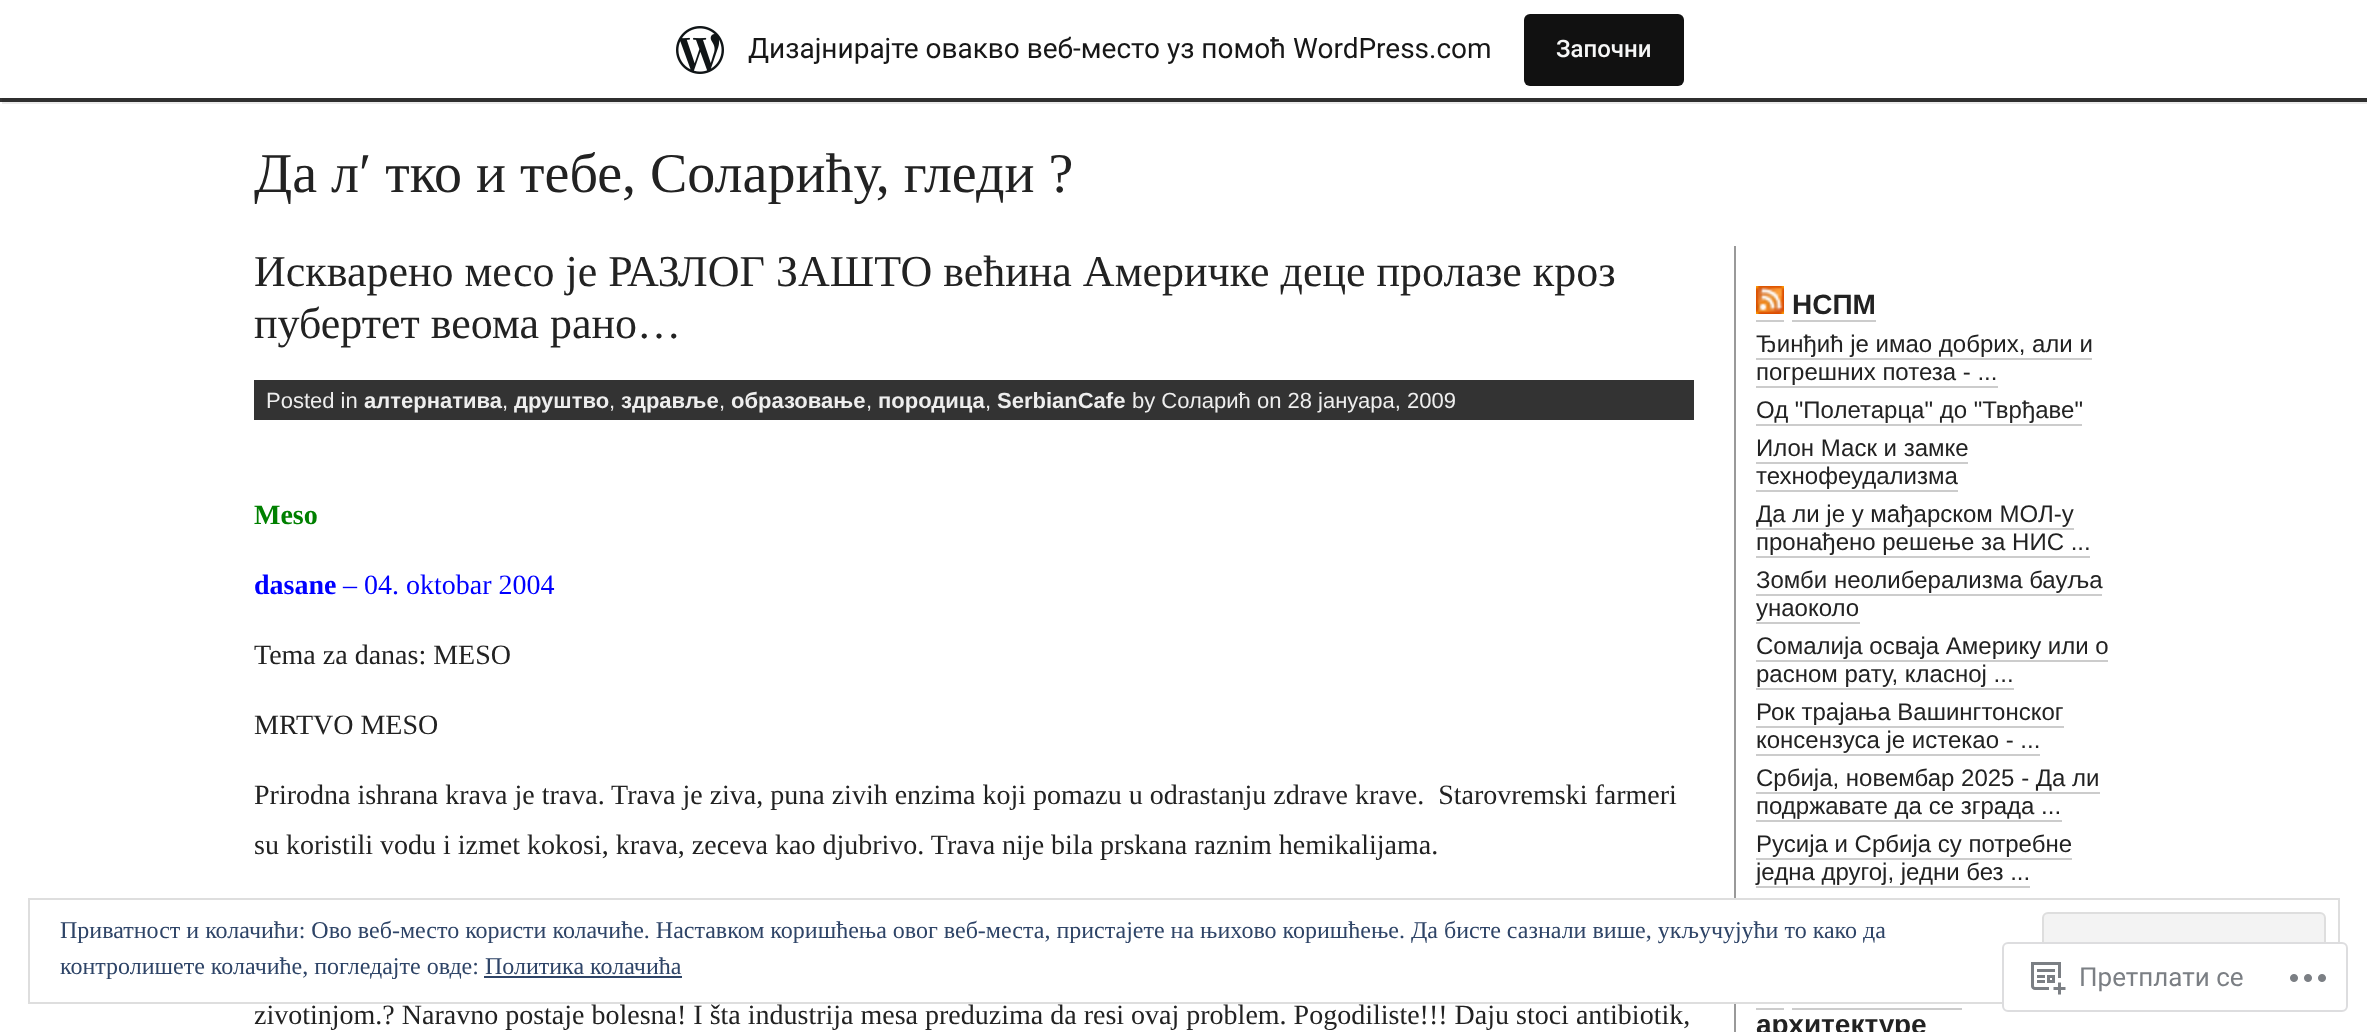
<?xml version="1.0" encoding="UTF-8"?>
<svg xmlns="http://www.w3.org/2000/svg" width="2367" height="1032">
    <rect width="100%" height="100%" fill="#FFFFFF"/>
    <rect x="0" y="98" width="2367" height="4" fill="#333333"/>
    <path d="M 2 98 V 104 H 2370 V 6 H 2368 V 98 Z" fill="#000000" fill-opacity="0.08"/>
    <image x="676" y="26" width="48" height="48" href="img_01.png"/>
    <text x="748" y="58" font-family="Roboto" font-size="28" fill="#171717">Дизајнирајте овакво веб-место уз помоћ WordPress.com</text>
    <rect x="1524" y="14" width="160" height="72" rx="6" fill="#111111"/>
    <text x="1556" y="57" font-family="Roboto" font-size="24" font-weight="500" fill="#F6F7F7">Започни</text>
    <text x="254" y="192" font-family="Liberation Serif" font-size="56" fill="#222222">Да л′ тко и тебе, Соларићу, гледи ?</text>
    <text font-family="Liberation Serif" font-size="44" fill="#222222">
        <tspan x="254" y="286">Искварено месо је РАЗЛОГ ЗАШТО већина Америчке деце пролазе кроз</tspan>
        <tspan x="254" y="338">пубертет веома рано…</tspan>
    </text>
    <rect x="254" y="380" width="1440" height="40" fill="#333333"/>
    <text x="266" y="408" font-family="Liberation Sans" font-size="22" fill="#EEEEEE">Posted in</text>
    <text x="364" y="408" font-family="Liberation Sans" font-size="22" font-weight="700" fill="#EEEEEE">алтернатива</text>
    <text x="502" y="408" font-family="Liberation Sans" font-size="22" fill="#EEEEEE">,</text>
    <text x="514" y="408" font-family="Liberation Sans" font-size="22" font-weight="700" fill="#EEEEEE">друштво</text>
    <text x="609" y="408" font-family="Liberation Sans" font-size="22" fill="#EEEEEE">,</text>
    <text x="621" y="408" font-family="Liberation Sans" font-size="22" font-weight="700" fill="#EEEEEE">здравље</text>
    <text x="719" y="408" font-family="Liberation Sans" font-size="22" fill="#EEEEEE">,</text>
    <text x="731" y="408" font-family="Liberation Sans" font-size="22" font-weight="700" fill="#EEEEEE">образовање</text>
    <text x="866" y="408" font-family="Liberation Sans" font-size="22" fill="#EEEEEE">,</text>
    <text x="878" y="408" font-family="Liberation Sans" font-size="22" font-weight="700" fill="#EEEEEE">породица</text>
    <text x="985" y="408" font-family="Liberation Sans" font-size="22" fill="#EEEEEE">,</text>
    <text x="997" y="408" font-family="Liberation Sans" font-size="22" font-weight="700" fill="#EEEEEE">SerbianCafe</text>
    <text x="1132" y="408" font-family="Liberation Sans" font-size="22" fill="#EEEEEE">by Соларић on 28 јануара, 2009</text>
    <text x="254" y="524" font-family="Liberation Serif" font-size="28" font-weight="700" fill="#008000">Meso</text>
    <text x="254" y="594" font-family="Liberation Serif" font-size="28" font-weight="700" fill="#0000FF">dasane</text>
    <text x="343" y="594" font-family="Liberation Serif" font-size="28" fill="#0000FF">– 04. oktobar 2004</text>
    <text x="254" y="664" font-family="Liberation Serif" font-size="28" fill="#222222">Tema za danas: MESO</text>
    <text x="254" y="734" font-family="Liberation Serif" font-size="28" fill="#222222">MRTVO MESO</text>
    <text font-family="Liberation Serif" font-size="28" fill="#222222" xml:space="preserve"><tspan x="254" y="804">Prirodna ishrana krava je trava. Trava je ziva, puna zivih enzima koji pomazu u odrastanju zdrave krave.  Starovremski farmeri</tspan><tspan x="254" y="854">su koristili vodu i izmet kokosi, krava, zeceva kao djubrivo. Trava nije bila prskana raznim hemikalijama.</tspan></text>
    <text x="254" y="1024" font-family="Liberation Serif" font-size="28" fill="#222222">zivotinjom.? Naravno postaje bolesna! I šta industrija mesa preduzima da resi ovaj problem. Pogodiliste!!! Daju stoci antibiotik,</text>
    <rect x="1734" y="246" width="2" height="786" fill="#999999"/>
    <rect x="1756" y="286" width="28" height="28" fill="#FFA500"/>
    <image x="1756" y="286" width="28" height="28" href="img_02.png"/>
    <text x="1792" y="314" font-family="Liberation Sans" font-size="28" font-weight="700" fill="#222222">НСПМ</text>
    <rect x="1792" y="320" width="84" height="2" fill="#CCCCCC"/>
    <rect x="1756" y="320" width="28" height="2" fill="#CCCCCC"/>
    <text x="1756" y="352" font-family="Liberation Sans" font-size="24" fill="#222222">Ђинђић је имао добрих, али и</text>
    <rect x="1756" y="358" width="336" height="2" fill="#CCCCCC"/>
    <text x="1756" y="380" font-family="Liberation Sans" font-size="24" fill="#222222">погрешних потеза - ...</text>
    <rect x="1756" y="386" width="242" height="2" fill="#CCCCCC"/>
    <text x="1756" y="418" font-family="Liberation Sans" font-size="24" fill="#222222">Од "Полетарца" до "Тврђаве"</text>
    <rect x="1756" y="424" width="326" height="2" fill="#CCCCCC"/>
    <text font-family="Liberation Sans" font-size="24" fill="#222222">
        <tspan x="1756" y="456">Илон Маск и замке</tspan>
        <tspan x="1756" y="484">технофеудализма</tspan>
    </text>
    <rect x="1756" y="462" width="212" height="2" fill="#CCCCCC"/>
    <rect x="1756" y="490" width="202" height="2" fill="#CCCCCC"/>
    <text x="1756" y="522" font-family="Liberation Sans" font-size="24" fill="#222222">Да ли је у мађарском МОЛ-у</text>
    <rect x="1756" y="528" width="318" height="2" fill="#CCCCCC"/>
    <text x="1756" y="550" font-family="Liberation Sans" font-size="24" fill="#222222">пронађено решење за НИС ...</text>
    <rect x="1756" y="556" width="334" height="2" fill="#CCCCCC"/>
    <text x="1756" y="588" font-family="Liberation Sans" font-size="24" fill="#222222">Зомби неолиберализма бауља</text>
    <rect x="1756" y="594" width="346" height="2" fill="#CCCCCC"/>
    <text x="1756" y="616" font-family="Liberation Sans" font-size="24" fill="#222222">унаоколо</text>
    <rect x="1756" y="622" width="104" height="2" fill="#CCCCCC"/>
    <text x="1756" y="654" font-family="Liberation Sans" font-size="24" fill="#222222">Сомалија осваја Америку или о</text>
    <rect x="1756" y="660" width="352" height="2" fill="#CCCCCC"/>
    <text x="1756" y="682" font-family="Liberation Sans" font-size="24" fill="#222222">расном рату, класној ...</text>
    <rect x="1756" y="688" width="258" height="2" fill="#CCCCCC"/>
    <text x="1756" y="720" font-family="Liberation Sans" font-size="24" fill="#222222">Рок трајања Вашингтонског</text>
    <rect x="1756" y="726" width="308" height="2" fill="#CCCCCC"/>
    <text x="1756" y="748" font-family="Liberation Sans" font-size="24" fill="#222222">консензуса је истекао - ...</text>
    <rect x="1756" y="754" width="284" height="2" fill="#CCCCCC"/>
    <text x="1756" y="786" font-family="Liberation Sans" font-size="24" fill="#222222">Србија, новембар 2025 - Да ли</text>
    <rect x="1756" y="792" width="344" height="2" fill="#CCCCCC"/>
    <text x="1756" y="814" font-family="Liberation Sans" font-size="24" fill="#222222">подржавате да се зграда ...</text>
    <rect x="1756" y="820" width="306" height="2" fill="#CCCCCC"/>
    <text x="1756" y="852" font-family="Liberation Sans" font-size="24" fill="#222222">Русија и Србија су потребне</text>
    <rect x="1756" y="858" width="316" height="2" fill="#CCCCCC"/>
    <text x="1756" y="880" font-family="Liberation Sans" font-size="24" fill="#222222">једна другој, једни без ...</text>
    <rect x="1756" y="886" width="274" height="2" fill="#CCCCCC"/>
    <rect x="1756" y="1008" width="28" height="2" fill="#CCCCCC"/>
    <text x="1756" y="1034" font-family="Liberation Sans" font-size="28" font-weight="700" fill="#222222">архитектуре</text>
    <rect x="1792" y="1008" width="170" height="2" fill="#CCCCCC"/>
    <rect x="1734" y="900" width="2" height="102" fill="#FFFFFF"/>
    <rect x="29" y="899" width="2310" height="104" fill="none" stroke="#DEDEDE" stroke-width="2"/>
    <text x="60" y="938" font-family="Liberation Serif" font-size="24" fill="#2E4467">Приватност и колачићи: Ово веб-место користи колачиће. Наставком коришћења овог веб-места, пристајете на њихово коришћење. Да бисте сазнали више, укључујући то како да</text>
    <rect x="2043" y="913" width="282" height="76" rx="5" fill="#F3F3F3" stroke="#DEDEDE" stroke-width="2"/>
    <text x="60" y="974" font-family="Liberation Serif" font-size="24" fill="#2E4467">контролишете колачиће, погледајте овде: Политика колачића</text>
    <rect x="484" y="976" width="198" height="2" fill="#2E4467"/>
    <rect x="2002" y="942" width="346" height="70" rx="6" fill="#FFFFFF" fill-opacity="0.98"/>
    <rect x="2003" y="943" width="344" height="68" rx="5" fill="none" stroke="#DCDCDE" stroke-opacity="0.98" stroke-width="2"/>
    <image x="2031" y="962" width="35" height="33" href="img_03.png"/>
    <text x="2079" y="986" font-family="Roboto" font-size="26" fill="#7B7F84">Претплати се</text>
    <image x="2290" y="974" width="36" height="8" href="img_04.png"/>
</svg>
